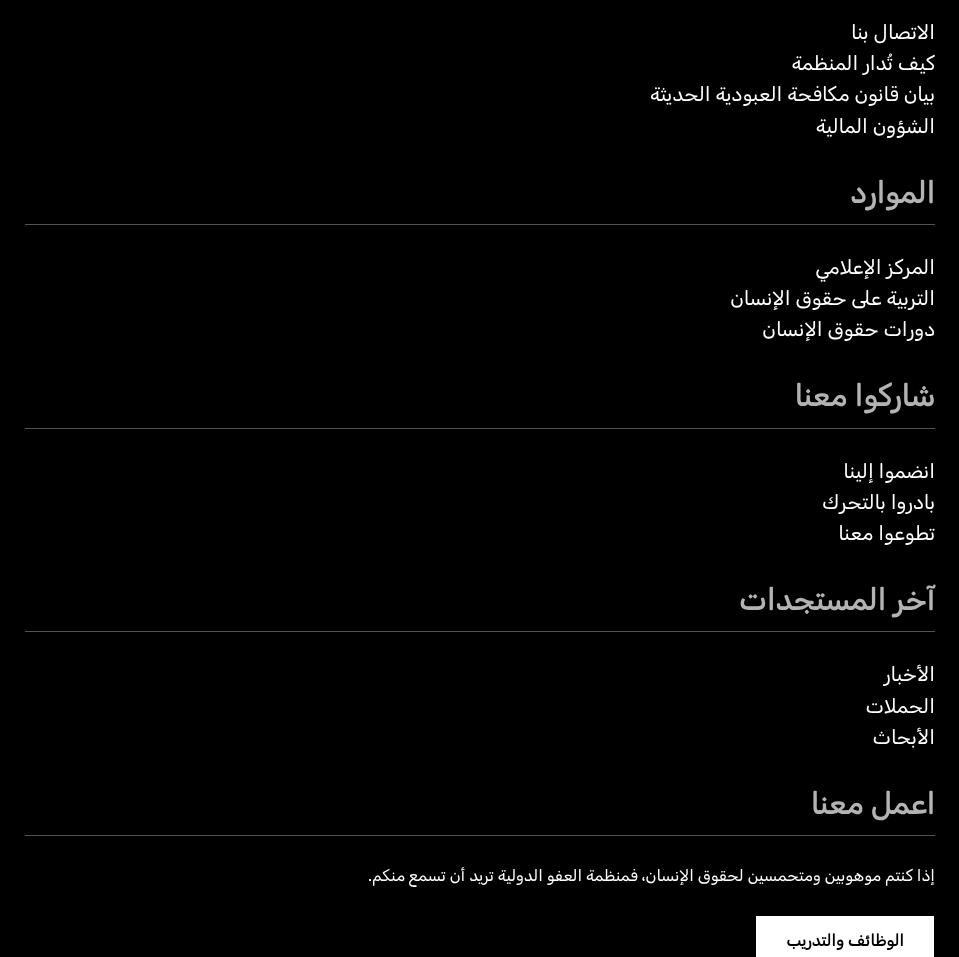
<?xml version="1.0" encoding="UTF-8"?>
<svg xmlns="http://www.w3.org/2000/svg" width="959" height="957">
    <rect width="100%" height="100%" fill="#000000"/>
    <text font-family="Rubik" font-size="20" font-weight="300" direction="rtl" fill="#FFFFFF">
        <tspan x="935" y="39">الاتصال بنا</tspan>
        <tspan x="935" y="70">كيف تُدار المنظمة</tspan>
        <tspan x="935" y="101">بيان قانون مكافحة العبودية الحديثة</tspan>
        <tspan x="935" y="133">الشؤون المالية</tspan>
    </text>
    <rect x="25" y="224" width="910" height="1" fill="#525252"/>
    <text x="935" y="203" font-family="Rubik" font-size="30" font-weight="700" direction="rtl" fill="#B3B3B3">الموارد</text>
    <text font-family="Rubik" font-size="20" font-weight="300" direction="rtl" fill="#FFFFFF">
        <tspan x="935" y="274">المركز الإعلامي</tspan>
        <tspan x="935" y="305">التربية على حقوق الإنسان</tspan>
        <tspan x="935" y="336">دورات حقوق الإنسان</tspan>
    </text>
    <rect x="25" y="428" width="910" height="1" fill="#525252"/>
    <text x="935" y="406" font-family="Rubik" font-size="30" font-weight="700" direction="rtl" fill="#B3B3B3">شاركوا معنا</text>
    <text font-family="Rubik" font-size="20" font-weight="300" direction="rtl" fill="#FFFFFF">
        <tspan x="935" y="478">انضموا إلينا</tspan>
        <tspan x="935" y="509">بادروا بالتحرك</tspan>
        <tspan x="935" y="540">تطوعوا معنا</tspan>
    </text>
    <rect x="25" y="631" width="910" height="1" fill="#525252"/>
    <text x="935" y="610" font-family="Rubik" font-size="30" font-weight="700" direction="rtl" fill="#B3B3B3">آخر المستجدات</text>
    <text font-family="Rubik" font-size="20" font-weight="300" direction="rtl" fill="#FFFFFF">
        <tspan x="935" y="681">الأخبار</tspan>
        <tspan x="935" y="713">الحملات</tspan>
        <tspan x="935" y="744">الأبحاث</tspan>
    </text>
    <rect x="25" y="835" width="910" height="1" fill="#525252"/>
    <text x="935" y="814" font-family="Rubik" font-size="30" font-weight="700" direction="rtl" fill="#B3B3B3">اعمل معنا</text>
    <text x="935" y="881" font-family="Rubik" font-size="16" font-weight="300" direction="rtl" fill="#FFFFFF">إذا كنتم موهوبين ومتحمسين لحقوق الإنسان، فمنظمة العفو الدولية تريد أن تسمع منكم.</text>
    <rect x="756" y="916" width="178" height="41" fill="#FFFFFF"/>
    <text x="904" y="946" font-family="Rubik" font-size="16.25" font-weight="700" direction="rtl" fill="#000000">الوظائف والتدريب</text>
</svg>
